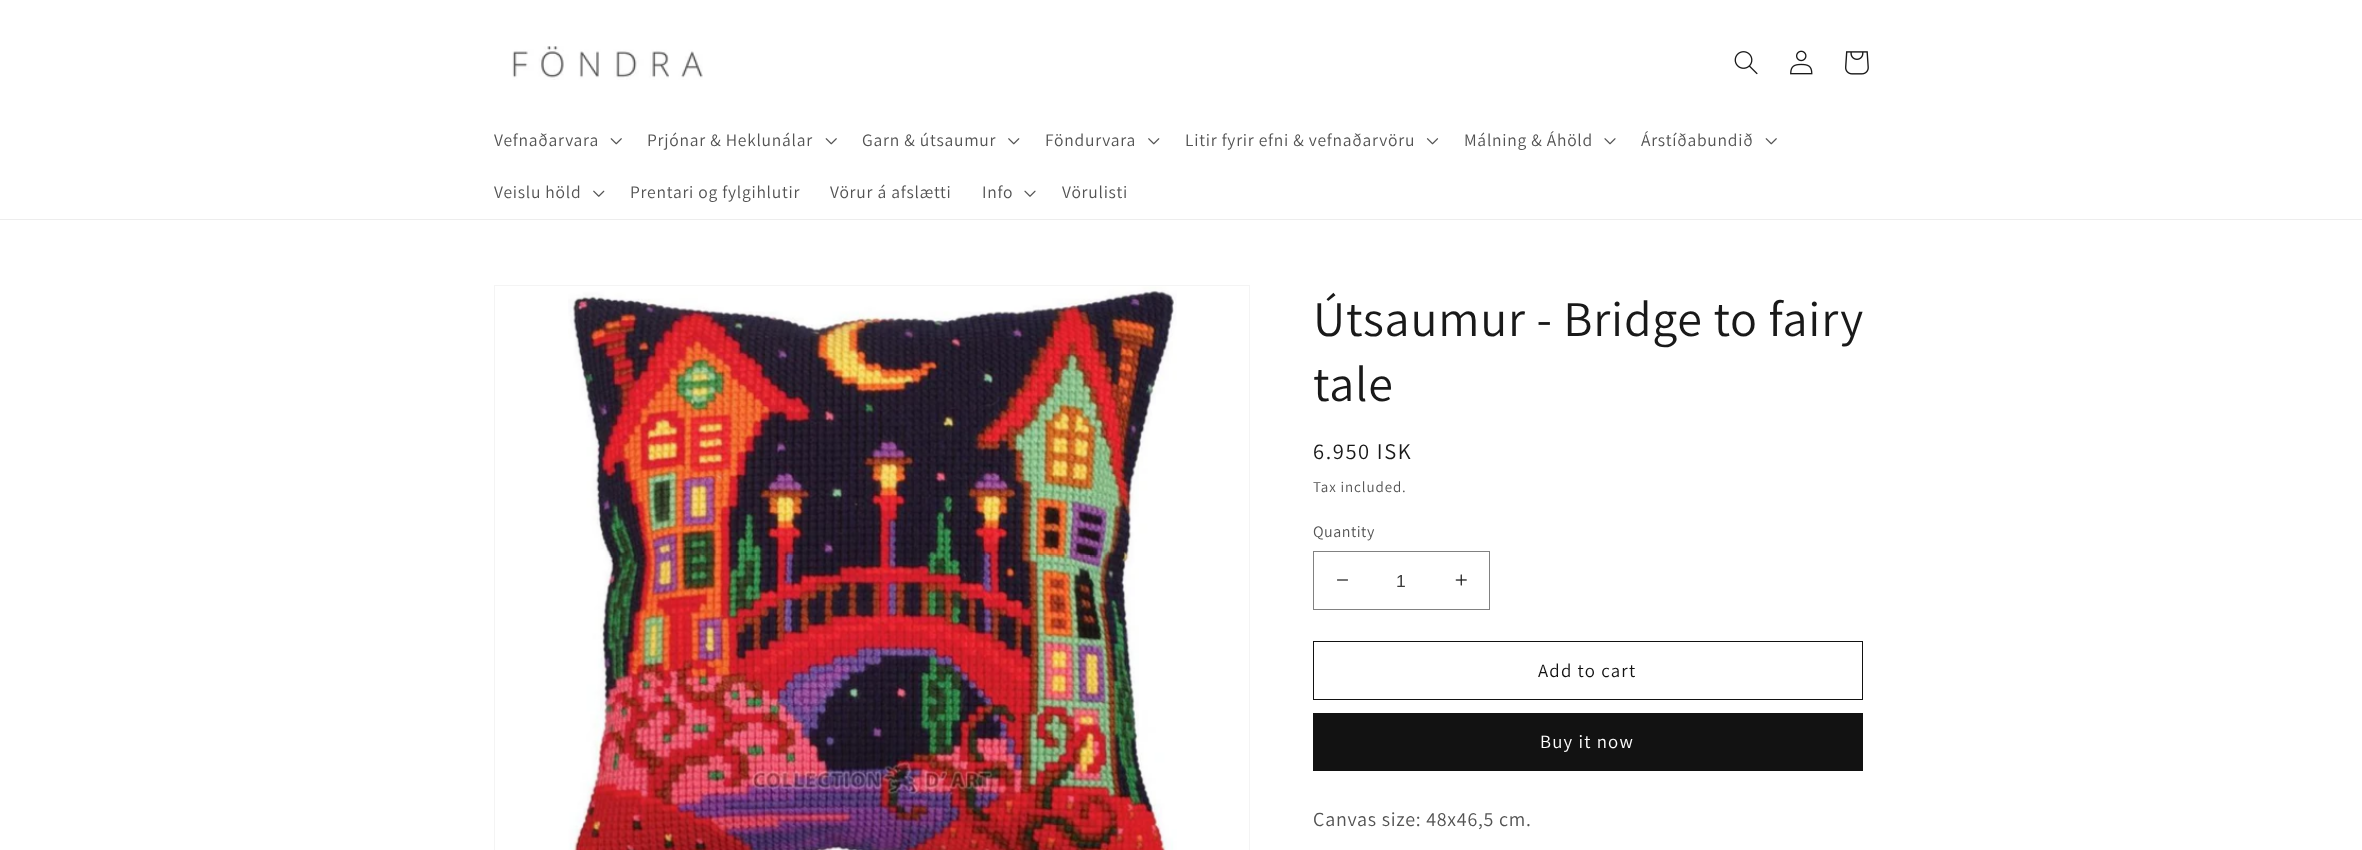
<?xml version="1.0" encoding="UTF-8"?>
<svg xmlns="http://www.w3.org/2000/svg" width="2362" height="850">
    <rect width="100%" height="100%" fill="#FFFFFF"/>
    <rect x="0" y="219" width="2362" height="1" fill="#EDEDED"/>
    <image x="512" y="46" width="191" height="34" href="img_01.png"/>
    <image x="1734" y="51" width="24" height="24" href="img_02.png"/>
    <image x="1790" y="50" width="23" height="25" href="img_03.png"/>
    <image x="1845" y="51" width="24" height="24" href="img_04.png"/>
    <text x="494" y="146" font-family="Assistant" font-size="17.5" letter-spacing="0.75" fill="#535353">Vefnaðarvara</text>
    <image x="610" y="138" width="12" height="7" href="img_05.png"/>
    <text x="647" y="146" font-family="Assistant" font-size="17.5" letter-spacing="0.75" fill="#535353">Prjónar &amp; Heklunálar</text>
    <image x="825" y="138" width="12" height="7" href="img_05.png"/>
    <text x="862" y="146" font-family="Assistant" font-size="17.5" letter-spacing="0.75" fill="#535353">Garn &amp; útsaumur</text>
    <image x="1008" y="138" width="12" height="7" href="img_06.png"/>
    <text x="1045" y="146" font-family="Assistant" font-size="17.5" letter-spacing="0.75" fill="#535353">Föndurvara</text>
    <image x="1148" y="138" width="12" height="7" href="img_06.png"/>
    <text x="1185" y="146" font-family="Assistant" font-size="17.5" letter-spacing="0.75" fill="#535353">Litir fyrir efni &amp; vefnaðarvöru</text>
    <image x="1426" y="138" width="13" height="7" href="img_07.png"/>
    <text x="1464" y="146" font-family="Assistant" font-size="17.5" letter-spacing="0.75" fill="#535353">Málning &amp; Áhöld</text>
    <image x="1604" y="138" width="12" height="7" href="img_08.png"/>
    <text x="1641" y="146" font-family="Assistant" font-size="17.5" letter-spacing="0.75" fill="#535353">Árstíðabundið</text>
    <image x="1765" y="138" width="12" height="7" href="img_05.png"/>
    <text x="494" y="198" font-family="Assistant" font-size="17.5" letter-spacing="0.75" fill="#535353">Veislu höld</text>
    <image x="593" y="190" width="12" height="7" href="img_09.png"/>
    <text x="630" y="198" font-family="Assistant" font-size="17.5" letter-spacing="0.75" fill="#535353">Prentari og fylgihlutir</text>
    <text x="830" y="198" font-family="Assistant" font-size="17.5" letter-spacing="0.75" fill="#535353">Vörur á afslætti</text>
    <text x="982" y="198" font-family="Assistant" font-size="17.5" letter-spacing="0.75" fill="#535353">Info</text>
    <image x="1024" y="190" width="12" height="7" href="img_10.png"/>
    <text x="1062" y="198" font-family="Assistant" font-size="17.5" letter-spacing="0.75" fill="#535353">Vörulisti</text>
    <rect x="494.5" y="285.5" width="755" height="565" fill="none" stroke="#F4F4F4"/>
    <image x="568" y="286" width="609" height="564" href="img_11.png"/>
    <text font-family="Assistant" font-size="50" letter-spacing="0.75" fill="#191919">
        <tspan x="1313" y="336">Útsaumur - Bridge to fairy</tspan>
        <tspan x="1313" y="401">tale</tspan>
    </text>
    <text x="1313" y="459" font-family="Assistant" font-size="22.5" letter-spacing="1.6" fill="#191919">6.950 ISK</text>
    <text x="1313" y="492" font-family="Assistant" font-size="15" letter-spacing="0.9" fill="#535353">Tax included.</text>
    <text x="1313" y="537" font-family="Assistant" font-size="16" letter-spacing="0.5" fill="#535353">Quantity</text>
    <image x="1337" y="579" width="11" height="2" href="img_12.png"/>
    <image x="1455" y="574" width="12" height="12" href="img_13.png"/>
    <rect x="1313.5" y="551.5" width="176" height="58" fill="none" stroke="#818181"/>
    <text x="1396" y="587" font-family="Liberation Sans" font-size="17.5" fill="#3C3C3C">1</text>
    <rect x="1313.5" y="641.5" width="549" height="58" fill="none" stroke="#121212"/>
    <text x="1538" y="677" font-family="Assistant" font-size="18.75" letter-spacing="1.25" fill="#121212">Add to cart</text>
    <rect x="1313" y="713" width="550" height="58" fill="#121212"/>
    <text x="1540" y="748" font-family="Assistant" font-size="18.75" letter-spacing="1.25" fill="#FFFFFF">Buy it now</text>
    <text x="1313" y="826" font-family="Assistant" font-size="20" letter-spacing="0.75" fill="#535353">Canvas size: 48x46,5 cm.</text>
</svg>
